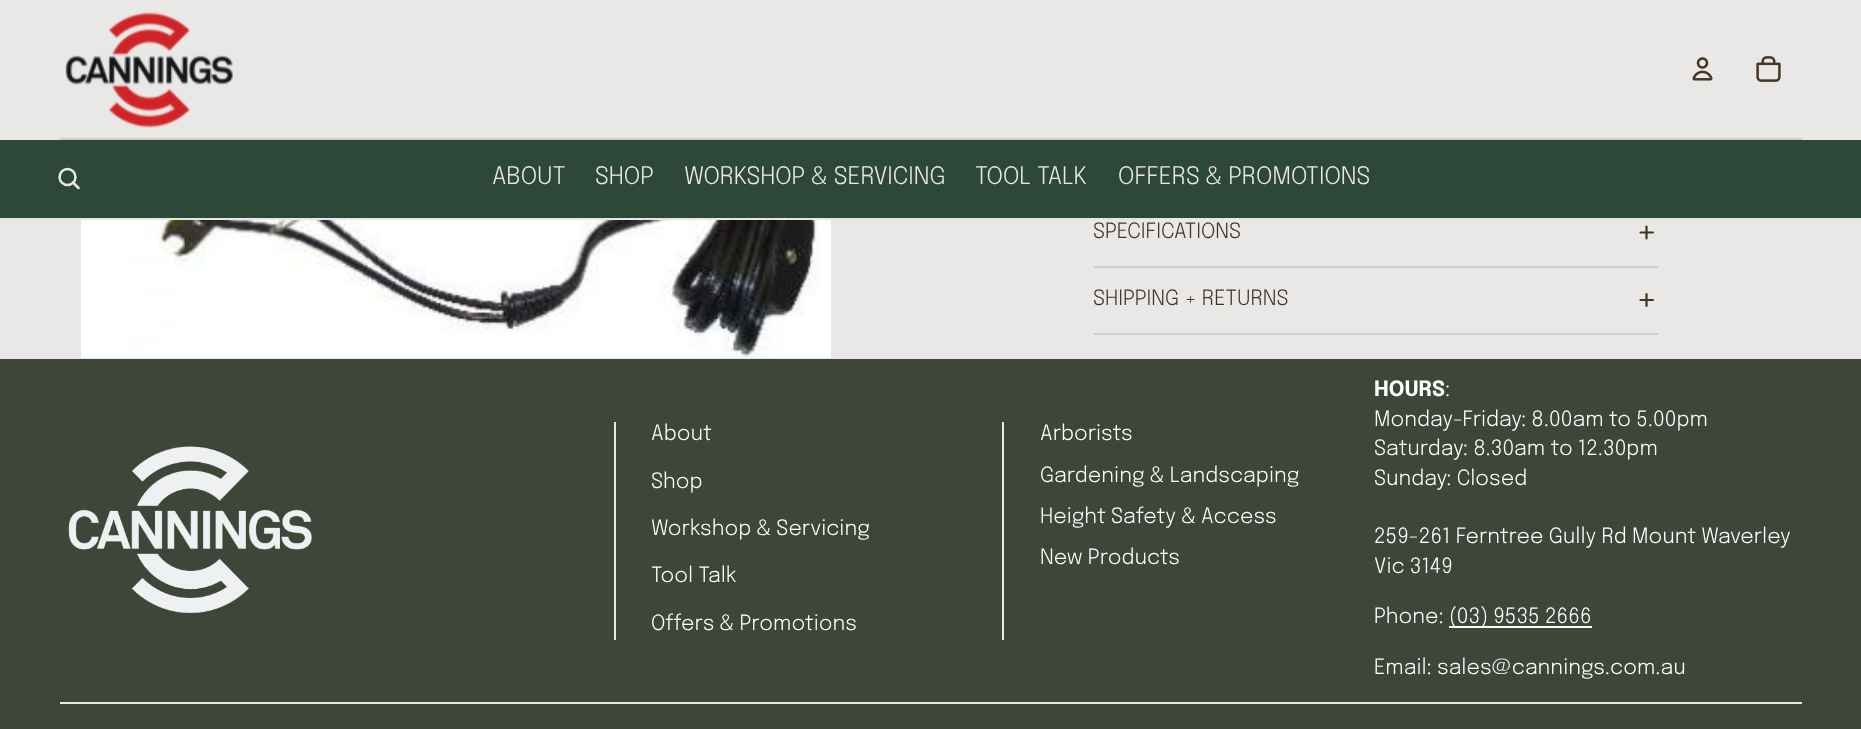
<?xml version="1.0" encoding="UTF-8"?>
<svg xmlns="http://www.w3.org/2000/svg" width="1861" height="729">
    <rect width="100%" height="100%" fill="#EAE8E6"/>
    <rect x="60" y="138" width="1742" height="2" fill="#D1CDC9"/>
    <image x="65" y="12" width="168" height="116" href="img_01.png"/>
    <image x="1692" y="57" width="21" height="24" href="img_02.png"/>
    <image x="1756" y="56" width="25" height="26" href="img_03.png"/>
    <rect x="0" y="140" width="1861" height="78" fill="#2D4739"/>
    <rect x="0" y="218" width="1861" height="2" fill="#E6E6E6"/>
    <circle cx="67.5" cy="177" r="8" fill="none" stroke="#EAE8E6" stroke-width="2.5"/>
    <path d="M 73 182.5 L 78.5 188" fill="none" stroke="#EAE8E6" stroke-width="2.5" stroke-linecap="round" stroke-linejoin="round"/>
    <text x="492" y="184" font-family="Epilogue" font-size="24" font-weight="300" fill="#EAE8E6">ABOUT</text>
    <text x="595" y="184" font-family="Epilogue" font-size="24" font-weight="300" fill="#EAE8E6">SHOP</text>
    <text x="684" y="184" font-family="Epilogue" font-size="24" font-weight="300" fill="#EAE8E6">WORKSHOP &amp; SERVICING</text>
    <text x="975" y="184" font-family="Epilogue" font-size="24" font-weight="300" fill="#EAE8E6">TOOL TALK</text>
    <text x="1118" y="184" font-family="Epilogue" font-size="24" font-weight="300" fill="#EAE8E6">OFFERS &amp; PROMOTIONS</text>
    <image x="81" y="220" width="750" height="138" href="img_04.png"/>
    <text x="1093" y="238" font-family="Epilogue" font-size="21" font-weight="300" fill="#433625">SPECIFICATIONS</text>
    <path d="M 1640.5 232.5 H 1653 M 1646.5 226.5 V 238.5" fill="none" stroke="#433625" stroke-width="2.2" stroke-linecap="round"/>
    <rect x="1094" y="266" width="564" height="2" fill="#D1CDC9"/>
    <rect x="1094" y="333" width="564" height="2" fill="#D1CDC9"/>
    <text x="1093" y="305" font-family="Epilogue" font-size="21" font-weight="300" fill="#433625">SHIPPING + RETURNS</text>
    <path d="M 1640.5 300 H 1653 M 1646.5 294 V 306" fill="none" stroke="#433625" stroke-width="2.2" stroke-linecap="round"/>
    <rect x="0" y="359" width="1861" height="370" fill="#3E4539"/>
    <image x="68" y="446" width="244" height="168" href="img_05.png"/>
    <rect x="614" y="422" width="2" height="218" fill="#EAE8E6"/>
    <text x="651" y="440" font-family="Epilogue" font-size="21" font-weight="300" fill="#FFFFFF">About</text>
    <text x="651" y="488" font-family="Epilogue" font-size="21" font-weight="300" fill="#FFFFFF">Shop</text>
    <text x="651" y="535" font-family="Epilogue" font-size="21" font-weight="300" fill="#FFFFFF">Workshop &amp; Servicing</text>
    <text x="651" y="582" font-family="Epilogue" font-size="21" font-weight="300" fill="#FFFFFF">Tool Talk</text>
    <text x="651" y="630" font-family="Epilogue" font-size="21" font-weight="300" fill="#FFFFFF">Offers &amp; Promotions</text>
    <rect x="1002" y="422" width="2" height="218" fill="#EAE8E6"/>
    <text x="1040" y="440" font-family="Epilogue" font-size="21" font-weight="300" fill="#FFFFFF">Arborists</text>
    <text font-family="Epilogue" font-size="21" font-weight="300" fill="#FFFFFF">
        <tspan x="1040" y="482">Gardening &amp; Landscaping</tspan>
        <tspan x="1040" y="523">Height Safety &amp; Access</tspan>
        <tspan x="1040" y="564">New Products</tspan>
    </text>
    <text x="1374" y="396" font-family="Epilogue" font-size="21" font-weight="700" fill="#FFFFFF">HOURS</text>
    <text x="1445" y="396" font-family="Epilogue" font-size="21" font-weight="300" fill="#FFFFFF">:</text>
    <text font-family="Epilogue" font-size="21" font-weight="300" fill="#FFFFFF">
        <tspan x="1374" y="426">Monday-Friday: 8.00am to 5.00pm</tspan>
        <tspan x="1374" y="455">Saturday: 8.30am to 12.30pm</tspan>
        <tspan x="1374" y="485">Sunday: Closed</tspan>
    </text>
    <text font-family="Epilogue" font-size="21" font-weight="300" fill="#FFFFFF">
        <tspan x="1374" y="543">259-261 Ferntree Gully Rd Mount Waverley</tspan>
        <tspan x="1374" y="573">Vic 3149</tspan>
    </text>
    <text x="1374" y="623" font-family="Epilogue" font-size="21" font-weight="300" fill="#FFFFFF">Phone:</text>
    <rect x="1449" y="626" width="143" height="2" fill="#FFFFFF"/>
    <text x="1449" y="623" font-family="Epilogue" font-size="21" font-weight="300" fill="#FFFFFF">(03) 9535 2666</text>
    <text x="1374" y="674" font-family="Epilogue" font-size="21" font-weight="300" fill="#FFFFFF">Email: sales@cannings.com.au</text>
    <rect x="60" y="702" width="1742" height="2" fill="#EAE8E6"/>
</svg>
